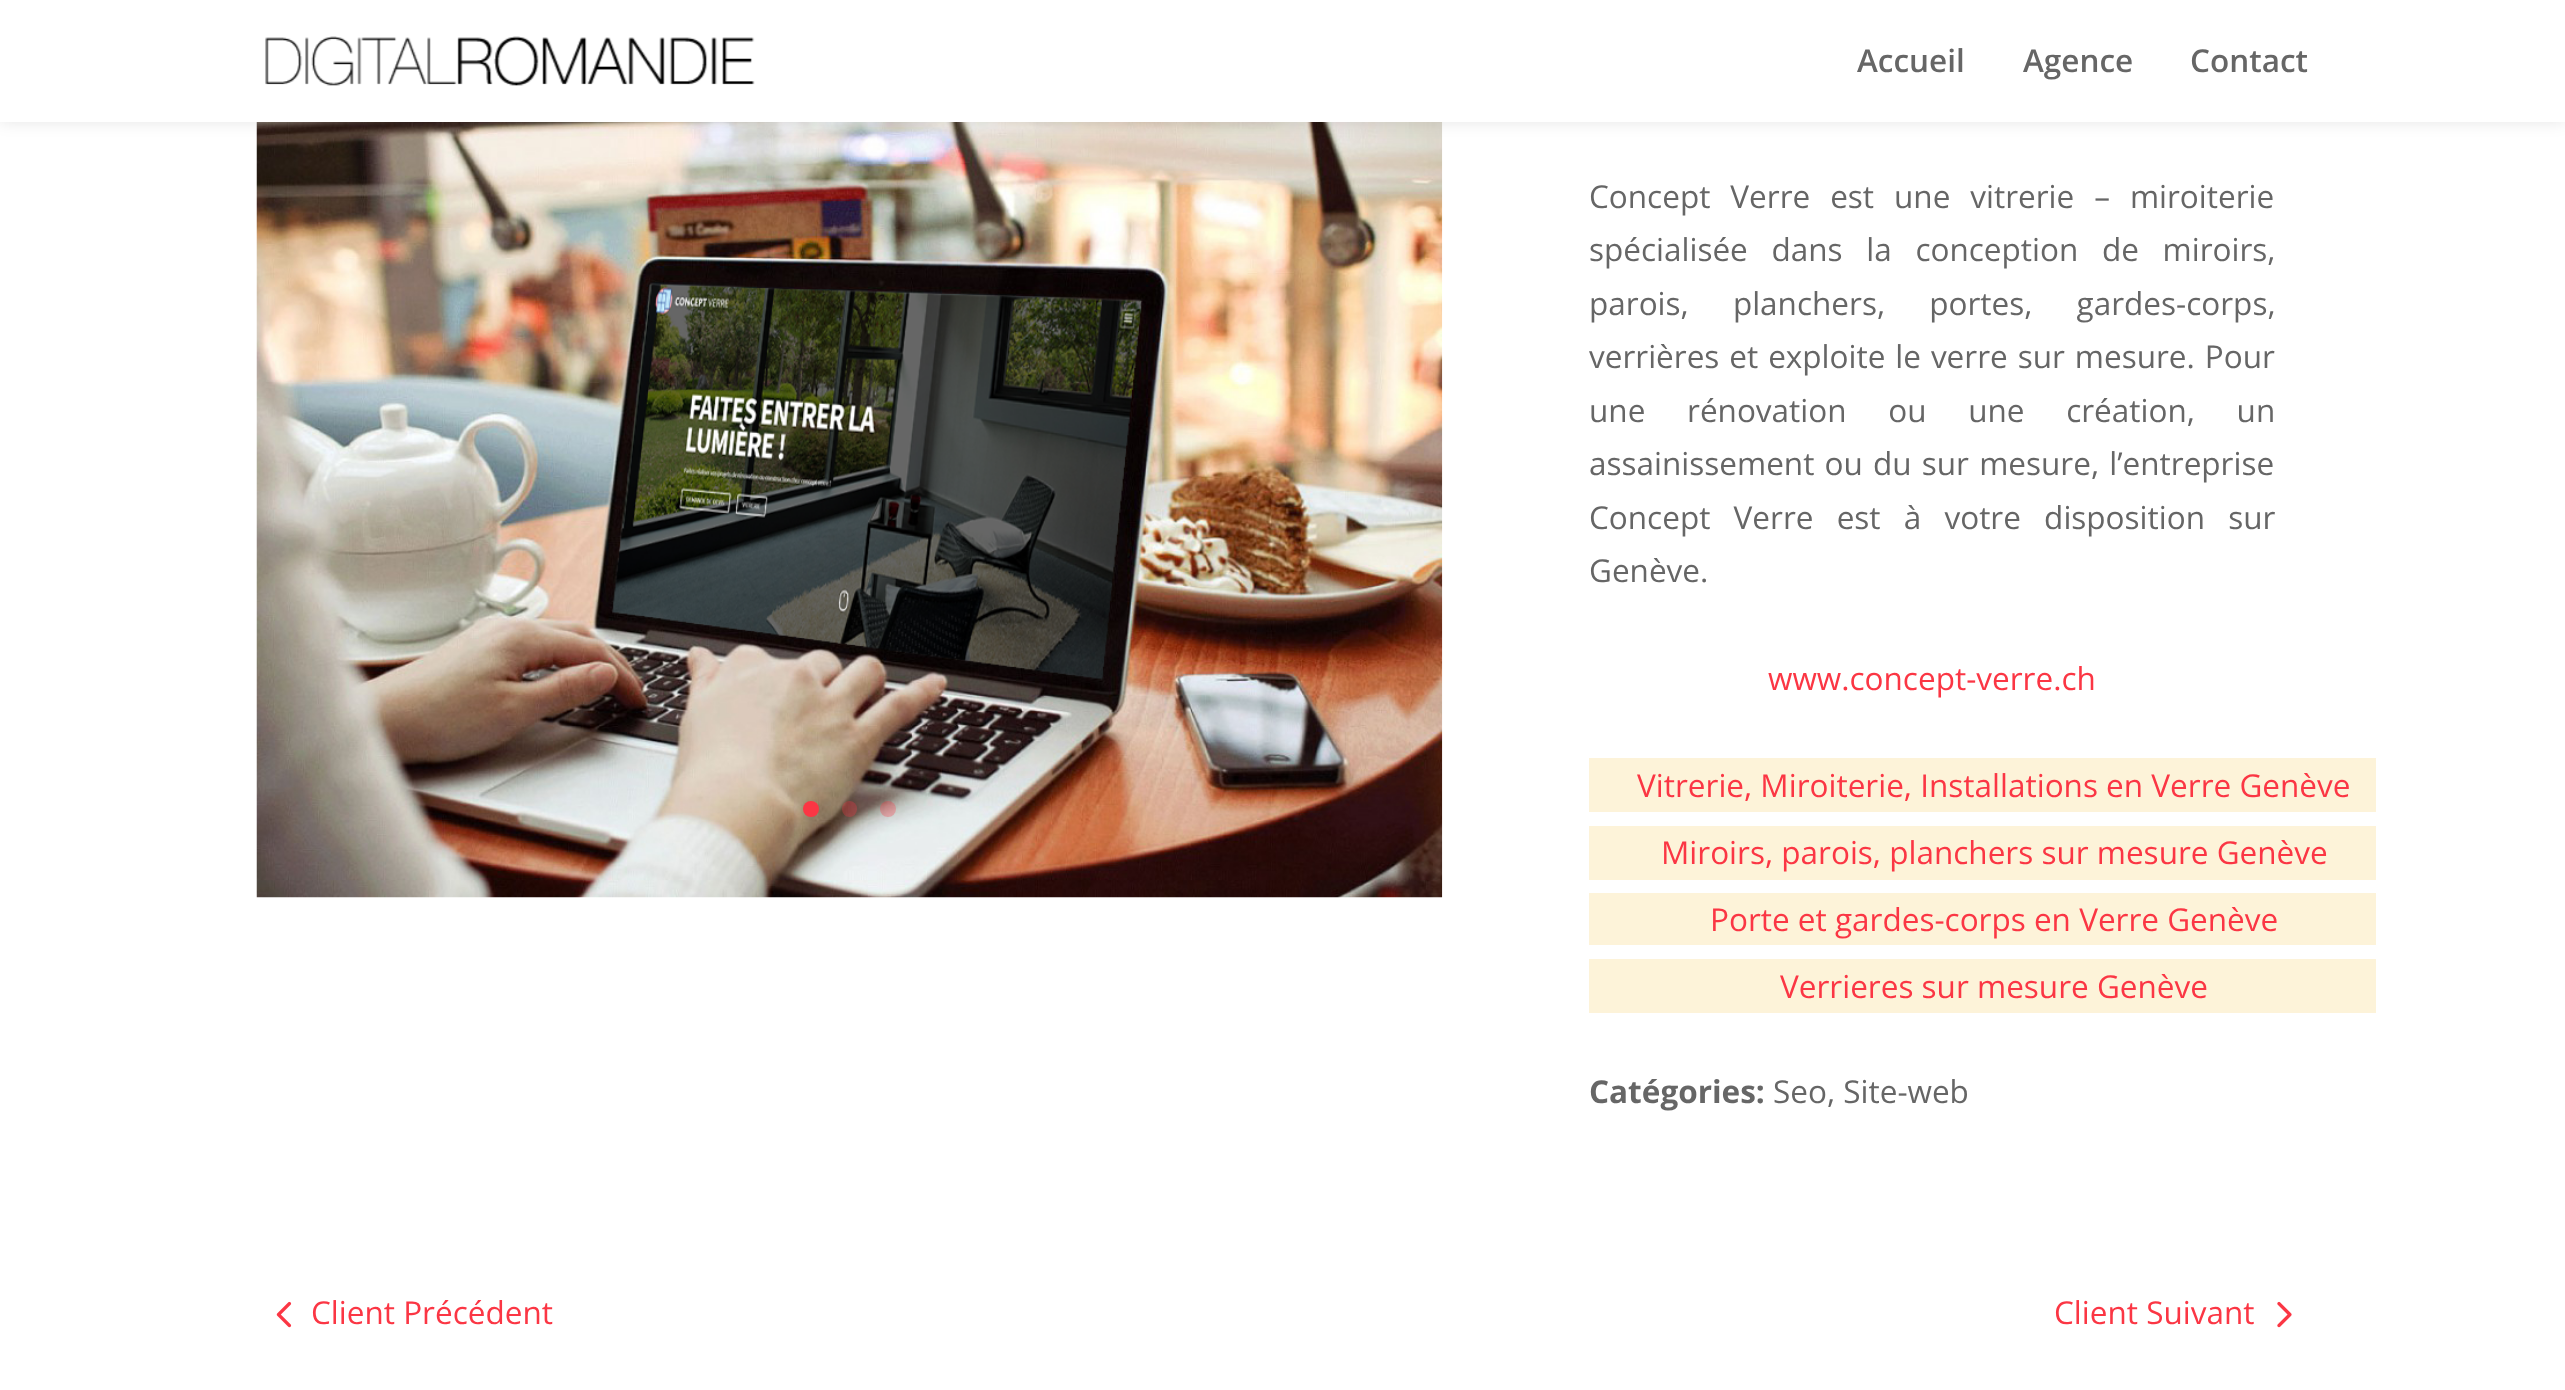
<?xml version="1.0" encoding="UTF-8"?>
<svg xmlns="http://www.w3.org/2000/svg" width="2565" height="1390">
    <defs>
        <filter id="blur1" x="-50%" y="-200%" width="200%" height="500%"><feGaussianBlur stdDeviation="8"/></filter>
    </defs>
    <rect width="100%" height="100%" fill="#FFFFFF"/>
    <image x="256" y="122" width="1187" height="776" href="img_02.png"/>
    <rect x="0" y="0" width="2565" height="122" fill="#000000" fill-opacity="0.1" filter="url(#blur1)"/>
    <rect x="0" y="0" width="2565" height="122" fill="#FFFFFF"/>
    <image x="265" y="36" width="490" height="50" href="img_01.png"/>
    <text x="1857" y="72" font-family="Open Sans" font-size="31.5" font-weight="600" fill="#666666">Accueil</text>
    <text x="2023" y="72" font-family="Open Sans" font-size="31.5" font-weight="600" fill="#666666">Agence</text>
    <text x="2190" y="72" font-family="Open Sans" font-size="31.5" font-weight="600" fill="#666666">Contact</text>
    <circle cx="811" cy="809" r="8" fill="#FB3644"/>
    <rect x="842" y="801" width="15" height="16" rx="7.5" fill="#FB3644" fill-opacity="0.3"/>
    <circle cx="888" cy="809" r="8" fill="#FB3644" fill-opacity="0.3"/>
    <text font-family="Open Sans" font-size="31.5" fill="#666666">
        <tspan x="1589" y="208" word-spacing="11.75">Concept Verre est une vitrerie – miroiterie</tspan>
        <tspan x="1589" y="261" word-spacing="15.5">spécialisée dans la conception de miroirs,</tspan>
        <tspan x="1589" y="315" word-spacing="36">parois, planchers, portes, gardes-corps,</tspan>
        <tspan x="1589" y="368" word-spacing="1.75">verrières et exploite le verre sur mesure. Pour</tspan>
        <tspan x="1589" y="422" word-spacing="33.5">une rénovation ou une création, un</tspan>
        <tspan x="1589" y="475" word-spacing="2">assainissement ou du sur mesure, l’entreprise</tspan>
        <tspan x="1589" y="529" word-spacing="15">Concept Verre est à votre disposition sur</tspan>
        <tspan x="1589" y="582">Genève.</tspan>
    </text>
    <text x="1768" y="690" font-family="Open Sans" font-size="31.5" fill="#FB3644">www.concept-verre.ch</text>
    <rect x="1589" y="758" width="787" height="54" fill="#FDF3D9"/>
    <text x="1637" y="797" font-family="Open Sans" font-size="31.5" fill="#FB3644">Vitrerie, Miroiterie, Installations en Verre Genève</text>
    <rect x="1589" y="826" width="787" height="54" fill="#FDF3D9"/>
    <text x="1661" y="864" font-family="Open Sans" font-size="31.5" fill="#FB3644">Miroirs, parois, planchers sur mesure Genève</text>
    <rect x="1589" y="893" width="787" height="52" fill="#FDF3D9"/>
    <text x="1710" y="931" font-family="Open Sans" font-size="31.5" fill="#FB3644">Porte et gardes-corps en Verre Genève</text>
    <rect x="1589" y="959" width="787" height="54" fill="#FDF3D9"/>
    <text x="1780" y="998" font-family="Open Sans" font-size="31.5" fill="#FB3644">Verrieres sur mesure Genève</text>
    <text x="1589" y="1103" font-family="Open Sans" font-size="31.5" font-weight="700" fill="#666666">Catégories:</text>
    <text x="1773" y="1103" font-family="Open Sans" font-size="31.5" fill="#666666">Seo, Site-web</text>
    <image x="276" y="1301" width="16" height="27" href="img_03.png"/>
    <text x="311" y="1324" font-family="Open Sans" font-size="31.5" fill="#FB3644">Client Précédent</text>
    <text x="2054" y="1324" font-family="Open Sans" font-size="31.5" fill="#FB3644">Client Suivant</text>
    <image x="2277" y="1301" width="15" height="27" href="img_04.png"/>
</svg>
